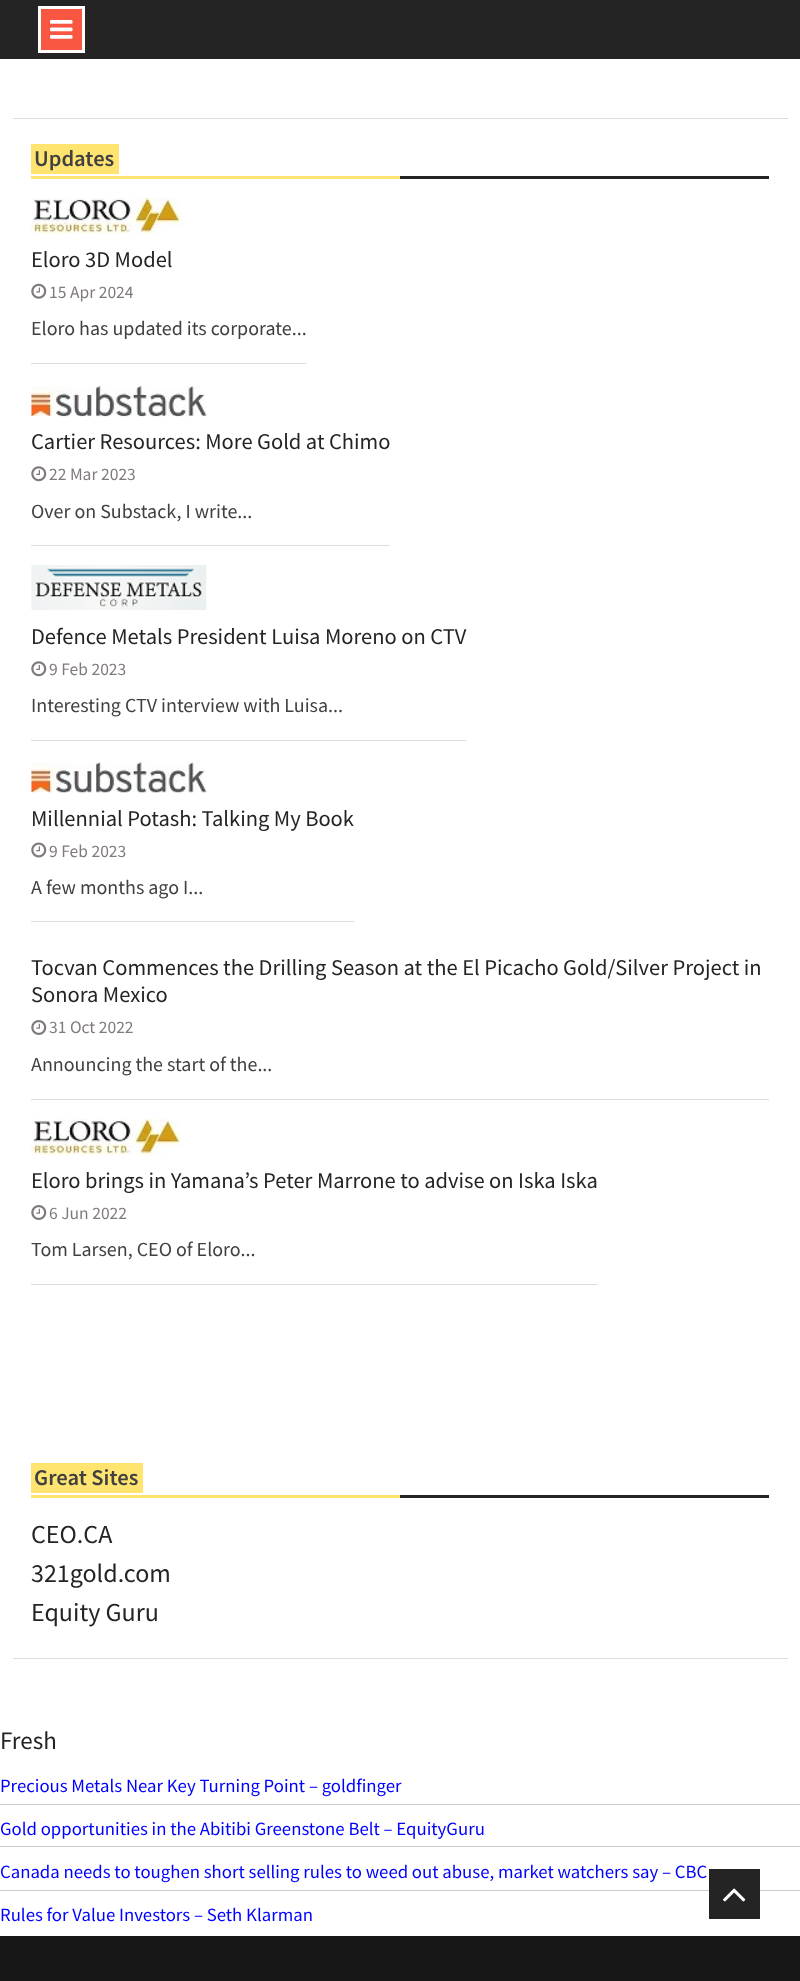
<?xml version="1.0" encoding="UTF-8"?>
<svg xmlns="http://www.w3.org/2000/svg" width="800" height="1981">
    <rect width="100%" height="100%" fill="#FFFFFF"/>
    <rect x="0" y="0" width="800" height="59" fill="#242424"/>
    <rect x="39.5" y="7.5" width="44" height="44" fill="#FA5742" stroke="#FFFFFE" stroke-width="3"/>
    <image x="50" y="20" width="23" height="19" href="img_01.png"/>
    <rect x="13" y="118" width="775" height="1" fill="#DDDDDD"/>
    <rect x="13" y="1658" width="775" height="1" fill="#DDDDDD"/>
    <rect x="400" y="176" width="369" height="3" fill="#242424"/>
    <rect x="31" y="144" width="88" height="30" fill="#FFE570"/>
    <text x="34" y="166" font-family="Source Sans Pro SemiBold" font-size="22.5" font-weight="600" fill="#404040">Updates</text>
    <rect x="31" y="176" width="369" height="3" fill="#FFE570"/>
    <image x="31" y="197" width="150" height="37" href="img_02.png"/>
    <rect x="31" y="363" width="275" height="1" fill="#DDDDDD"/>
    <text x="31" y="267" font-family="Source Sans Pro" font-size="22.5" fill="#242424">Eloro 3D Model</text>
    <image x="31" y="283" width="16" height="16" href="img_03.png"/>
    <text x="49" y="298" font-family="Source Sans Pro" font-size="17.5" fill="#807A7A">15 Apr 2024</text>
    <text x="31" y="335" font-family="Source Sans Pro" font-size="20" fill="#404040">Eloro has updated its corporate...</text>
    <image x="31" y="386" width="176" height="31" href="img_04.png"/>
    <rect x="31" y="545" width="359" height="1" fill="#DDDDDD"/>
    <text x="31" y="449" font-family="Source Sans Pro" font-size="22.5" fill="#242424">Cartier Resources: More Gold at Chimo</text>
    <image x="31" y="466" width="16" height="16" href="img_05.png"/>
    <text x="49" y="480" font-family="Source Sans Pro" font-size="17.5" fill="#807A7A">22 Mar 2023</text>
    <text x="31" y="518" font-family="Source Sans Pro" font-size="20" fill="#404040">Over on Substack, I write...</text>
    <image x="31" y="565" width="176" height="45" href="img_06.png"/>
    <rect x="31" y="740" width="435" height="1" fill="#DDDDDD"/>
    <text x="31" y="644" font-family="Source Sans Pro" font-size="22.5" fill="#242424">Defence Metals President Luisa Moreno on CTV</text>
    <image x="31" y="661" width="16" height="16" href="img_05.png"/>
    <text x="49" y="675" font-family="Source Sans Pro" font-size="17.5" fill="#807A7A">9 Feb 2023</text>
    <text x="31" y="712" font-family="Source Sans Pro" font-size="20" fill="#404040">Interesting CTV interview with Luisa...</text>
    <image x="31" y="762" width="176" height="31" href="img_07.png"/>
    <rect x="31" y="921" width="323" height="1" fill="#DDDDDD"/>
    <text x="31" y="826" font-family="Source Sans Pro" font-size="22.5" fill="#242424">Millennial Potash: Talking My Book</text>
    <image x="31" y="842" width="16" height="16" href="img_08.png"/>
    <text x="49" y="857" font-family="Source Sans Pro" font-size="17.5" fill="#807A7A">9 Feb 2023</text>
    <text x="31" y="894" font-family="Source Sans Pro" font-size="20" fill="#404040">A few months ago I...</text>
    <rect x="31" y="1099" width="738" height="1" fill="#DDDDDD"/>
    <text font-family="Source Sans Pro" font-size="22.5" fill="#242424">
        <tspan x="31" y="975">Tocvan Commences the Drilling Season at the El Picacho Gold/Silver Project in</tspan>
        <tspan x="31" y="1002">Sonora Mexico</tspan>
    </text>
    <image x="31" y="1020" width="16" height="15" href="img_09.png"/>
    <text x="49" y="1033" font-family="Source Sans Pro" font-size="17.5" fill="#807A7A">31 Oct 2022</text>
    <text x="31" y="1071" font-family="Source Sans Pro" font-size="20" fill="#404040">Announcing the start of the...</text>
    <image x="31" y="1119" width="150" height="36" href="img_10.png"/>
    <rect x="31" y="1284" width="567" height="1" fill="#DDDDDD"/>
    <text x="31" y="1188" font-family="Source Sans Pro" font-size="22.5" fill="#242424">Eloro brings in Yamana’s Peter Marrone to advise on Iska Iska</text>
    <image x="31" y="1205" width="16" height="15" href="img_09.png"/>
    <text x="49" y="1219" font-family="Source Sans Pro" font-size="17.5" fill="#807A7A">6 Jun 2022</text>
    <text x="31" y="1256" font-family="Source Sans Pro" font-size="20" fill="#404040">Tom Larsen, CEO of Eloro...</text>
    <rect x="400" y="1495" width="369" height="3" fill="#242424"/>
    <rect x="31" y="1463" width="112" height="30" fill="#FFE570"/>
    <text x="34" y="1485" font-family="Source Sans Pro SemiBold" font-size="22.5" font-weight="600" fill="#404040">Great Sites</text>
    <rect x="31" y="1495" width="369" height="3" fill="#FFE570"/>
    <text font-family="Source Sans Pro" font-size="26" fill="#242424">
        <tspan x="31" y="1543">CEO.CA</tspan>
        <tspan x="31" y="1582">321gold.com</tspan>
        <tspan x="31" y="1621">Equity Guru</tspan>
    </text>
    <text x="0" y="1749" font-family="Source Sans Pro" font-size="25" fill="#242424">Fresh</text>
    <rect x="0" y="1804" width="800" height="1" fill="#CCCCCC"/>
    <text x="0" y="1792" font-family="Source Sans Pro" font-size="18.75" fill="#0000FF">Precious Metals Near Key Turning Point – goldfinger</text>
    <rect x="0" y="1846" width="800" height="1" fill="#CCCCCC"/>
    <text x="0" y="1835" font-family="Source Sans Pro" font-size="18.75" fill="#0000FF">Gold opportunities in the Abitibi Greenstone Belt – EquityGuru</text>
    <rect x="0" y="1890" width="800" height="1" fill="#CCCCCC"/>
    <text x="0" y="1878" font-family="Source Sans Pro" font-size="18.75" fill="#0000FF">Canada needs to toughen short selling rules to weed out abuse, market watchers say – CBC</text>
    <text x="0" y="1921" font-family="Source Sans Pro" font-size="18.75" fill="#0000FF">Rules for Value Investors – Seth Klarman</text>
    <rect x="0" y="1936" width="800" height="45" fill="#171717"/>
    <rect x="709" y="1869" width="51" height="50" fill="#242424"/>
    <image x="723" y="1888" width="23" height="14" href="img_11.png"/>
</svg>
